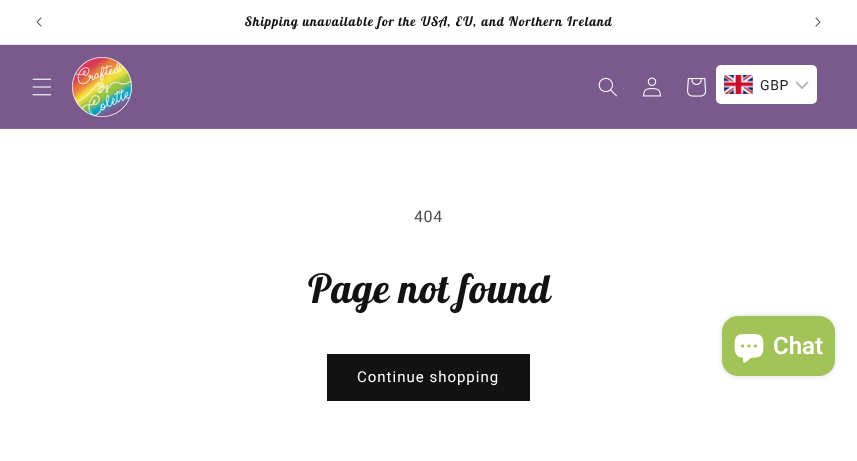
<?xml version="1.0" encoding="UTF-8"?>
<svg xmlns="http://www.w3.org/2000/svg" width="857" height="461">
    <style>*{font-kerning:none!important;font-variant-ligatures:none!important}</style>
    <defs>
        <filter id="blur1" x="-50%" y="-200%" width="200%" height="500%"><feGaussianBlur stdDeviation="2.5"/></filter>
    </defs>
    <rect width="100%" height="100%" fill="#FFFFFF"/>
    <rect x="0" y="44" width="857" height="1" fill="#ECECEC"/>
    <image x="36" y="17" width="6" height="10" href="img_01.png"/>
    <text x="245" y="26" font-family="Lobster Two" font-size="13" font-weight="700" font-style="italic" letter-spacing="1" fill="#121212">Shipping unavailable for the USA, EU, and Northern Ireland</text>
    <image x="815" y="17" width="6" height="10" href="img_02.png"/>
    <rect x="0" y="45" width="857" height="83" fill="#7A598D"/>
    <rect x="0" y="128" width="857" height="1" fill="#856696"/>
    <image x="32" y="78" width="20" height="18" href="img_03.png"/>
    <image x="72" y="57" width="60" height="60" href="img_04.png"/>
    <image x="598" y="77" width="19" height="20" href="img_05.png"/>
    <image x="643" y="77" width="18" height="20" href="img_06.png"/>
    <image x="687" y="78" width="20" height="19" href="img_07.png"/>
    <rect x="716" y="65" width="101" height="39" rx="5" fill="#FFFFFF"/>
    <image x="724" y="75" width="29" height="19" href="img_08.png"/>
    <text x="760" y="90" font-family="Roboto" font-size="14" letter-spacing="0.6" fill="#1E1E1E">GBP</text>
    <path d="M 796.5 82.5 L 802 88 L 807.5 82.5" fill="none" stroke="#B7B7B7" stroke-width="1.8" stroke-linecap="round" stroke-linejoin="round"/>
    <text x="414" y="222" font-family="Roboto" font-size="16" letter-spacing="0.6" fill="#4D4D4D">404</text>
    <text x="306" y="303" font-family="Lobster Two" font-size="40" font-weight="700" font-style="italic" letter-spacing="0.6" fill="#121212">Page not found</text>
    <rect x="327" y="354" width="203" height="47" fill="#121212"/>
    <text x="357" y="382" font-family="Roboto" font-size="15" letter-spacing="1" fill="#FFFFFF">Continue shopping</text>
    <rect x="722" y="316" width="113" height="60" rx="16" fill="#000000" fill-opacity="0.15" filter="url(#blur1)"/>
    <rect x="722" y="316" width="113" height="60" rx="16" fill="#A2C358"/>
    <image x="734" y="334" width="30" height="29" href="img_09.png"/>
    <text x="773" y="354" font-family="Roboto" font-size="24" font-weight="600" fill="#FFFFFF">Chat</text>
</svg>
